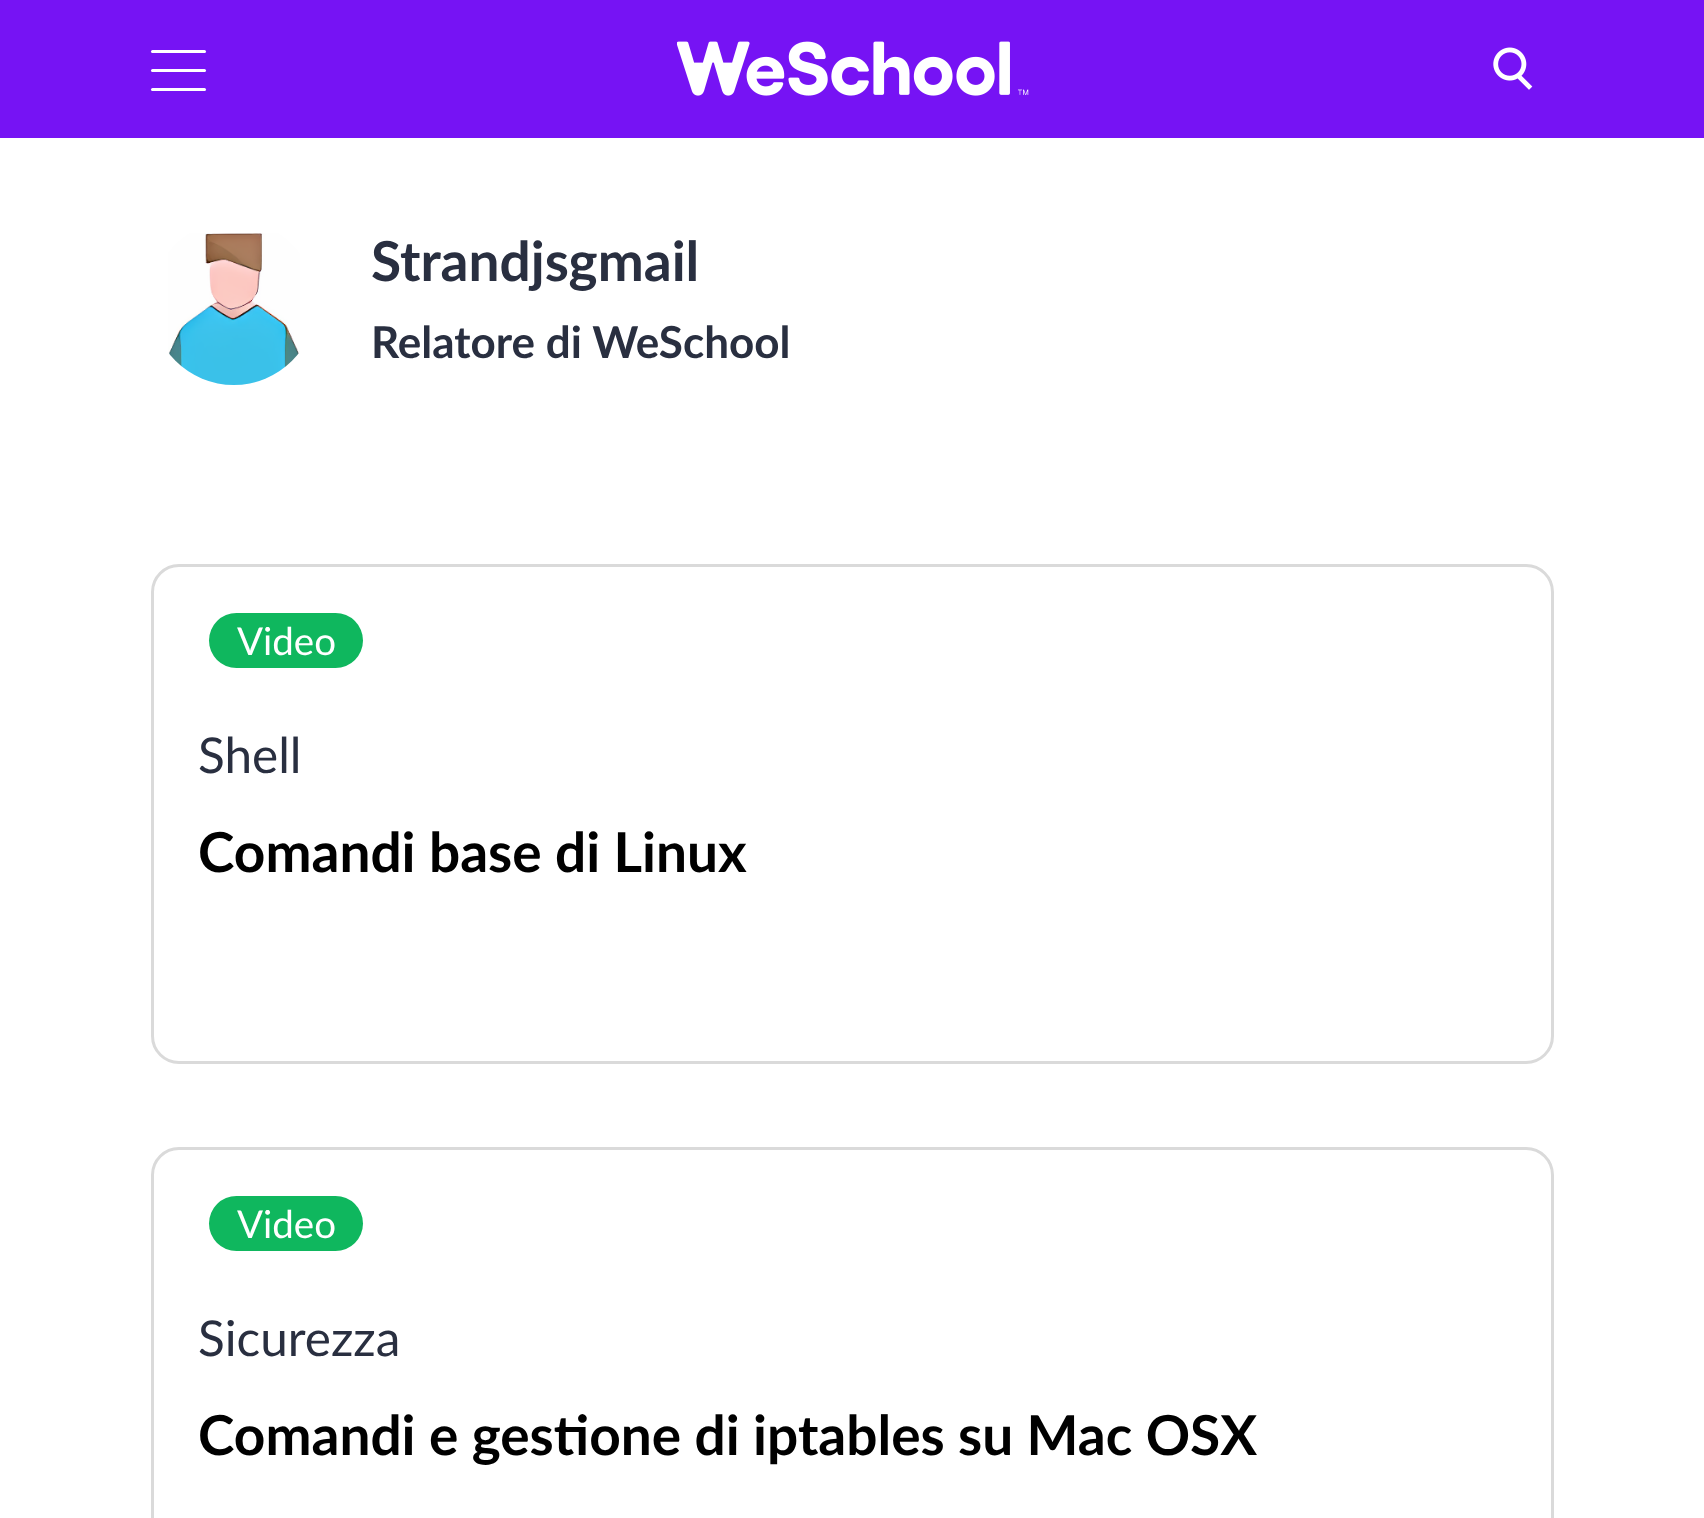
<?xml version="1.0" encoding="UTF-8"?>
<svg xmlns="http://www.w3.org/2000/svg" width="1704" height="1518">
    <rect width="100%" height="100%" fill="#FFFFFF"/>
    <rect x="0" y="0" width="1704" height="138" fill="#7613F4"/>
    <rect x="151" y="50" width="55" height="3" rx="1.5" fill="#FFFFFF"/>
    <rect x="151" y="69" width="55" height="3" rx="1.5" fill="#FFFFFF"/>
    <rect x="151" y="88" width="55" height="3" rx="1.5" fill="#FFFFFF"/>
    <image x="677" y="41" width="352" height="55" href="img_01.png"/>
    <image x="1493" y="47" width="40" height="43" href="img_02.png"/>
    <image x="168" y="233" width="132" height="152" href="img_03.png"/>
    <text x="371" y="281" font-family="Lato" font-size="55" font-weight="700" fill="#292F40">Strandjsgmail</text>
    <text x="371" y="358" font-family="Lato" font-size="44" font-weight="700" fill="#292F40">Relatore di WeSchool</text>
    <rect x="152.5" y="565.5" width="1400" height="497" rx="26.5" fill="none" stroke="#DADADA" stroke-width="3"/>
    <rect x="209" y="613" width="154" height="55" rx="27.5" fill="#0FB75E"/>
    <text x="237" y="655" font-family="Lato" font-size="38.5" fill="#FFFFFF">Video</text>
    <text x="198" y="773" font-family="Lato" font-size="49.5" fill="#292F40">Shell</text>
    <text x="198" y="872" font-family="Lato" font-size="55" font-weight="700" fill="#000000">Comandi base di Linux</text>
    <rect x="152.5" y="1148.5" width="1400" height="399" rx="26.5" fill="none" stroke="#DADADA" stroke-width="3"/>
    <rect x="209" y="1196" width="154" height="55" rx="27.5" fill="#0FB75E"/>
    <text x="237" y="1238" font-family="Lato" font-size="38.5" fill="#FFFFFF">Video</text>
    <text x="198" y="1356" font-family="Lato" font-size="49.5" fill="#292F40">Sicurezza</text>
    <text x="198" y="1455" font-family="Lato" font-size="55" font-weight="700" fill="#000000">Comandi e gestione di iptables su Mac OSX</text>
</svg>
